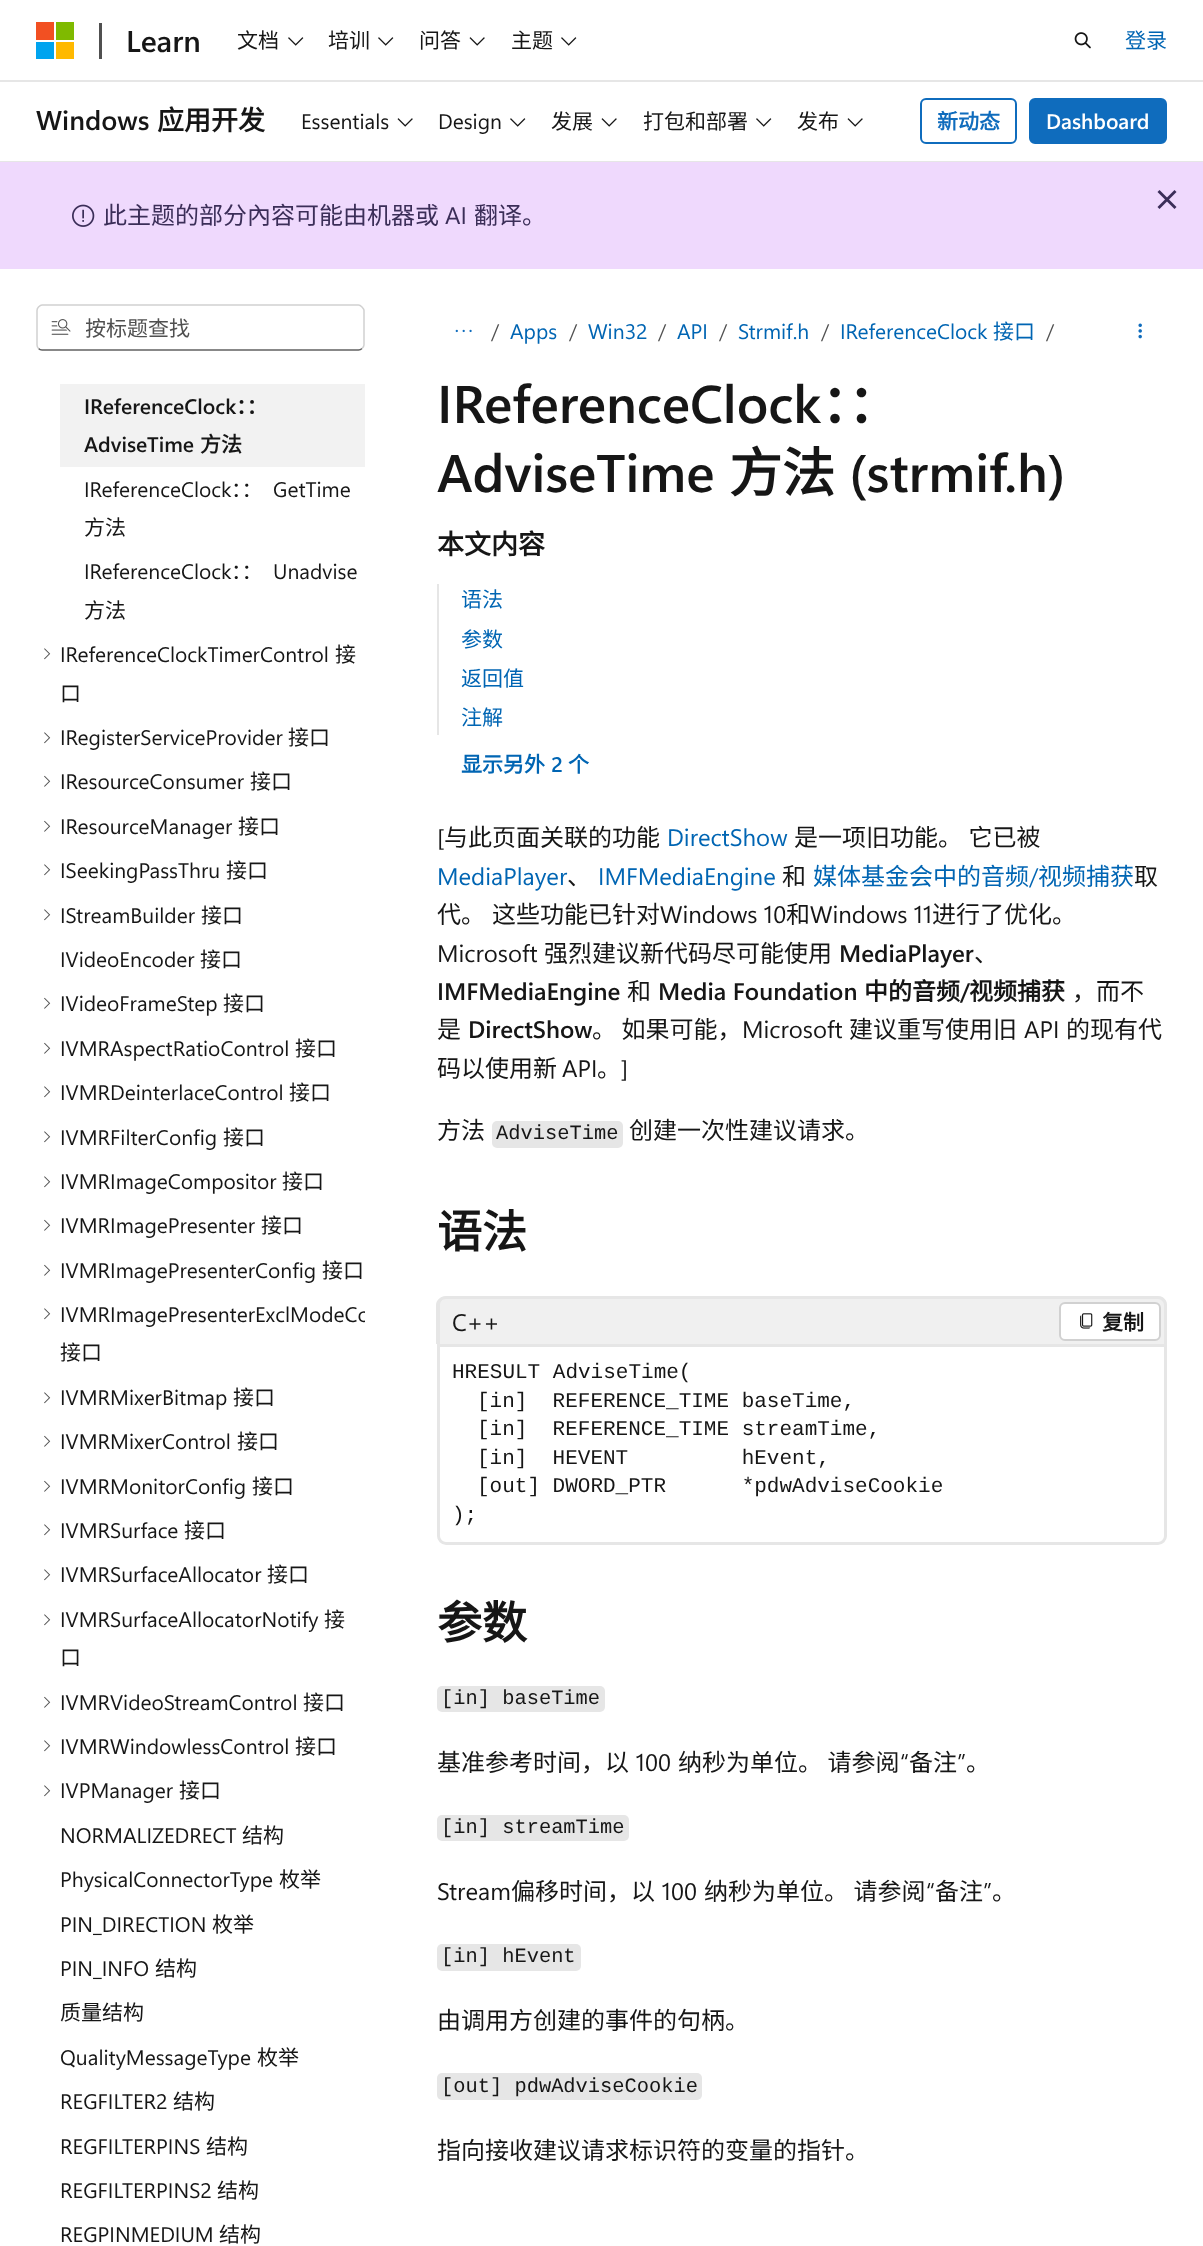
<?xml version="1.0" encoding="UTF-8"?>
<svg xmlns="http://www.w3.org/2000/svg" width="1203" height="2246">
    <defs>
        <clipPath id="clip1"><rect x="86" y="312" width="238" height="30"/></clipPath>
        <clipPath id="clip2"><rect x="36" y="363" width="329" height="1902"/></clipPath>
    </defs>
    <rect width="100%" height="100%" fill="#FFFFFF"/>
    <rect x="0" y="80" width="1203" height="2" fill="#E6E6E6"/>
    <rect x="36" y="22" width="18" height="18" fill="#F25022"/>
    <rect x="56" y="22" width="18" height="18" fill="#7FBA00"/>
    <rect x="36" y="42" width="18" height="17" fill="#00A4EF"/>
    <rect x="56" y="42" width="18" height="17" fill="#FFB900"/>
    <rect x="99" y="23" width="3" height="36" fill="#505050"/>
    <text x="126" y="52" font-family="Segoe UI" font-size="30" font-weight="600" fill="#161616">Learn</text>
    <text x="237" y="48" font-family="Noto Sans CJK SC" font-size="21" fill="#161616">文档</text>
    <image x="288" y="37" width="16" height="9" href="img_01.png"/>
    <text x="328" y="48" font-family="Noto Sans CJK SC" font-size="21" fill="#161616">培训</text>
    <image x="378" y="37" width="16" height="9" href="img_01.png"/>
    <text x="419" y="48" font-family="Noto Sans CJK SC" font-size="21" fill="#161616">问答</text>
    <image x="469" y="37" width="16" height="9" href="img_02.png"/>
    <text x="511" y="48" font-family="Noto Sans CJK SC" font-size="21" fill="#161616">主题</text>
    <image x="561" y="37" width="16" height="9" href="img_01.png"/>
    <image x="1074" y="32" width="17" height="17" href="img_03.png"/>
    <text x="1125" y="48" font-family="Noto Sans CJK SC" font-size="21" fill="#0065B3">登录</text>
    <rect x="0" y="161" width="1203" height="1" fill="#E6E6E6"/>
    <text x="36" y="130" font-family="Segoe UI" font-size="27" font-weight="600" fill="#161616">Windows</text>
    <text x="157" y="130" font-family="Noto Sans CJK SC" font-size="27" font-weight="700" fill="#161616">应用开发</text>
    <text x="301" y="129" font-family="Segoe UI" font-size="21" fill="#161616">Essentials</text>
    <image x="397" y="118" width="16" height="9" href="img_02.png"/>
    <text x="438" y="129" font-family="Segoe UI" font-size="21" fill="#161616">Design</text>
    <image x="510" y="118" width="16" height="9" href="img_01.png"/>
    <text x="551" y="129" font-family="Noto Sans CJK SC" font-size="21" fill="#161616">发展</text>
    <image x="601" y="118" width="16" height="9" href="img_02.png"/>
    <text x="643" y="129" font-family="Noto Sans CJK SC" font-size="21" fill="#161616">打包和部署</text>
    <image x="756" y="118" width="16" height="9" href="img_01.png"/>
    <text x="797" y="129" font-family="Noto Sans CJK SC" font-size="21" fill="#161616">发布</text>
    <image x="847" y="118" width="16" height="9" href="img_02.png"/>
    <rect x="921" y="99" width="95" height="44" rx="5" fill="none" stroke="#0F6CBD" stroke-width="2"/>
    <text x="937" y="129" font-family="Noto Sans CJK SC" font-size="21" font-weight="700" fill="#0F6CBD">新动态</text>
    <rect x="1030" y="99" width="136" height="44" rx="5" fill="#0F6CBD" stroke="#0F6CBD" stroke-width="2"/>
    <text x="1046" y="129" font-family="Segoe UI" font-size="21" font-weight="600" fill="#FFFFFF">Dashboard</text>
    <rect x="0" y="162" width="1203" height="107" fill="#EFD9FD"/>
    <path d="M 1159.5 190 L 1176.5 207 L 1174.5 209 L 1157.5 192 Z" fill="#3B2E58"/>
    <path d="M 1174.5 190 L 1176.5 192 L 1159.5 209 L 1157.5 207 Z" fill="#3B2E58"/>
    <image x="72" y="204" width="23" height="23" href="img_04.png"/>
    <text x="103" y="224" font-family="Noto Sans CJK SC" font-size="24" fill="#3B2E58">此主题的部分內容可能由机器或</text>
    <text x="445" y="224" font-family="Segoe UI" font-size="24" fill="#3B2E58">AI</text>
    <text x="474" y="224" font-family="Noto Sans CJK SC" font-size="24" fill="#3B2E58">翻译。</text>
    <path d="M 362 348.5 C 361 349.5 360 350 358.5 350 H 42 C 40.5 350 39.5 349.5 38.5 348.5" fill="none" stroke="#616161" stroke-width="1.5"/>
    <path d="M 38.5 348.5 C 37.5 347.5 37 346.5 37 345 V 310.5 C 37 309 37.5 308 38.5 307 C 39.5 306 40.5 305 42 305 H 358.5 C 360 305 361 306 362 307 C 363 308 364 309 364 310.5 V 345 C 364 346.5 363 347.5 362 348.5" fill="none" stroke="#D1D1D1" stroke-width="1.5"/>
    <image x="51" y="319" width="20" height="16" href="img_05.png"/>
    <g clip-path="url(#clip1)">
        <text x="85" y="336" font-family="Noto Sans CJK SC" font-size="21" fill="#505050">按标题查找</text>
    </g>
    <rect x="60" y="384" width="305" height="83" fill="#F2F2F2"/>
    <text x="84" y="414" font-family="Segoe UI" font-size="21" font-weight="600" fill="#161616">IReferenceClock</text>
    <text x="236" y="414" font-family="Noto Sans CJK SC" font-size="21" font-weight="700" fill="#161616">：：</text>
    <text x="84" y="452" font-family="Segoe UI" font-size="21" font-weight="600" fill="#161616">AdviseTime</text>
    <text x="200" y="452" font-family="Noto Sans CJK SC" font-size="21" font-weight="700" fill="#161616">方法</text>
    <text x="84" y="497" font-family="Segoe UI" font-size="21" fill="#161616">IReferenceClock</text>
    <text x="231" y="497" font-family="Noto Sans CJK SC" font-size="21" fill="#161616">：：</text>
    <text x="273" y="497" font-family="Segoe UI" font-size="21" fill="#161616">GetTime</text>
    <text x="84" y="535" font-family="Noto Sans CJK SC" font-size="21" fill="#161616">方法</text>
    <text x="84" y="579" font-family="Segoe UI" font-size="21" fill="#161616">IReferenceClock</text>
    <text x="231" y="579" font-family="Noto Sans CJK SC" font-size="21" fill="#161616">：：</text>
    <text x="273" y="579" font-family="Segoe UI" font-size="21" fill="#161616">Unadvise</text>
    <text x="84" y="618" font-family="Noto Sans CJK SC" font-size="21" fill="#161616">方法</text>
    <image x="44" y="648" width="7" height="12" href="img_06.png"/>
    <text x="60" y="662" font-family="Segoe UI" font-size="21" fill="#161616">IReferenceClockTimerControl</text>
    <text x="335" y="662" font-family="Noto Sans CJK SC" font-size="21" fill="#161616">接</text>
    <text x="60" y="701" font-family="Noto Sans CJK SC" font-size="21" fill="#161616">口</text>
    <image x="44" y="732" width="7" height="12" href="img_06.png"/>
    <text x="60" y="745" font-family="Segoe UI" font-size="21" fill="#161616">IRegisterServiceProvider</text>
    <text x="288" y="745" font-family="Noto Sans CJK SC" font-size="21" fill="#161616">接口</text>
    <image x="44" y="775" width="7" height="12" href="img_07.png"/>
    <text x="60" y="789" font-family="Segoe UI" font-size="21" fill="#161616">IResourceConsumer</text>
    <text x="250" y="789" font-family="Noto Sans CJK SC" font-size="21" fill="#161616">接口</text>
    <image x="44" y="820" width="7" height="12" href="img_07.png"/>
    <text x="60" y="834" font-family="Segoe UI" font-size="21" fill="#161616">IResourceManager</text>
    <text x="238" y="834" font-family="Noto Sans CJK SC" font-size="21" fill="#161616">接口</text>
    <image x="44" y="864" width="7" height="12" href="img_06.png"/>
    <text x="60" y="878" font-family="Segoe UI" font-size="21" fill="#161616">ISeekingPassThru</text>
    <text x="226" y="878" font-family="Noto Sans CJK SC" font-size="21" fill="#161616">接口</text>
    <image x="44" y="909" width="7" height="12" href="img_06.png"/>
    <text x="60" y="923" font-family="Segoe UI" font-size="21" fill="#161616">IStreamBuilder</text>
    <text x="201" y="923" font-family="Noto Sans CJK SC" font-size="21" fill="#161616">接口</text>
    <text x="60" y="967" font-family="Segoe UI" font-size="21" fill="#161616">IVideoEncoder</text>
    <text x="200" y="967" font-family="Noto Sans CJK SC" font-size="21" fill="#161616">接口</text>
    <image x="44" y="997" width="7" height="12" href="img_07.png"/>
    <text x="60" y="1011" font-family="Segoe UI" font-size="21" fill="#161616">IVideoFrameStep</text>
    <text x="223" y="1011" font-family="Noto Sans CJK SC" font-size="21" fill="#161616">接口</text>
    <image x="44" y="1042" width="7" height="12" href="img_07.png"/>
    <text x="60" y="1056" font-family="Segoe UI" font-size="21" fill="#161616">IVMRAspectRatioControl</text>
    <text x="295" y="1056" font-family="Noto Sans CJK SC" font-size="21" fill="#161616">接口</text>
    <image x="44" y="1086" width="7" height="12" href="img_06.png"/>
    <text x="60" y="1100" font-family="Segoe UI" font-size="21" fill="#161616">IVMRDeinterlaceControl</text>
    <text x="289" y="1100" font-family="Noto Sans CJK SC" font-size="21" fill="#161616">接口</text>
    <image x="44" y="1131" width="7" height="12" href="img_06.png"/>
    <text x="60" y="1145" font-family="Segoe UI" font-size="21" fill="#161616">IVMRFilterConfig</text>
    <text x="223" y="1145" font-family="Noto Sans CJK SC" font-size="21" fill="#161616">接口</text>
    <image x="44" y="1176" width="7" height="12" href="img_06.png"/>
    <text x="60" y="1189" font-family="Segoe UI" font-size="21" fill="#161616">IVMRImageCompositor</text>
    <text x="282" y="1189" font-family="Noto Sans CJK SC" font-size="21" fill="#161616">接口</text>
    <image x="44" y="1219" width="7" height="12" href="img_07.png"/>
    <text x="60" y="1233" font-family="Segoe UI" font-size="21" fill="#161616">IVMRImagePresenter</text>
    <text x="261" y="1233" font-family="Noto Sans CJK SC" font-size="21" fill="#161616">接口</text>
    <image x="44" y="1264" width="7" height="12" href="img_07.png"/>
    <text x="60" y="1278" font-family="Segoe UI" font-size="21" fill="#161616">IVMRImagePresenterConfig</text>
    <text x="322" y="1278" font-family="Noto Sans CJK SC" font-size="21" fill="#161616">接口</text>
    <image x="44" y="1308" width="7" height="12" href="img_06.png"/>
    <g clip-path="url(#clip2)">
        <text x="60" y="1322" font-family="Segoe UI" font-size="21" fill="#161616">IVMRImagePresenterExclModeCo</text>
    </g>
    <text x="60" y="1360" font-family="Noto Sans CJK SC" font-size="21" fill="#161616">接口</text>
    <image x="44" y="1392" width="7" height="12" href="img_06.png"/>
    <text x="60" y="1405" font-family="Segoe UI" font-size="21" fill="#161616">IVMRMixerBitmap</text>
    <text x="233" y="1405" font-family="Noto Sans CJK SC" font-size="21" fill="#161616">接口</text>
    <image x="44" y="1435" width="7" height="12" href="img_07.png"/>
    <text x="60" y="1449" font-family="Segoe UI" font-size="21" fill="#161616">IVMRMixerControl</text>
    <text x="237" y="1449" font-family="Noto Sans CJK SC" font-size="21" fill="#161616">接口</text>
    <image x="44" y="1480" width="7" height="12" href="img_07.png"/>
    <text x="60" y="1494" font-family="Segoe UI" font-size="21" fill="#161616">IVMRMonitorConfig</text>
    <text x="252" y="1494" font-family="Noto Sans CJK SC" font-size="21" fill="#161616">接口</text>
    <image x="44" y="1524" width="7" height="12" href="img_06.png"/>
    <text x="60" y="1538" font-family="Segoe UI" font-size="21" fill="#161616">IVMRSurface</text>
    <text x="184" y="1538" font-family="Noto Sans CJK SC" font-size="21" fill="#161616">接口</text>
    <image x="44" y="1569" width="7" height="12" href="img_06.png"/>
    <text x="60" y="1582" font-family="Segoe UI" font-size="21" fill="#161616">IVMRSurfaceAllocator</text>
    <text x="267" y="1582" font-family="Noto Sans CJK SC" font-size="21" fill="#161616">接口</text>
    <image x="44" y="1614" width="7" height="12" href="img_06.png"/>
    <text x="60" y="1627" font-family="Segoe UI" font-size="21" fill="#161616">IVMRSurfaceAllocatorNotify</text>
    <text x="324" y="1627" font-family="Noto Sans CJK SC" font-size="21" fill="#161616">接</text>
    <text x="60" y="1665" font-family="Noto Sans CJK SC" font-size="21" fill="#161616">口</text>
    <image x="44" y="1696" width="7" height="12" href="img_07.png"/>
    <text x="60" y="1710" font-family="Segoe UI" font-size="21" fill="#161616">IVMRVideoStreamControl</text>
    <text x="303" y="1710" font-family="Noto Sans CJK SC" font-size="21" fill="#161616">接口</text>
    <image x="44" y="1740" width="7" height="12" href="img_06.png"/>
    <text x="60" y="1754" font-family="Segoe UI" font-size="21" fill="#161616">IVMRWindowlessControl</text>
    <text x="295" y="1754" font-family="Noto Sans CJK SC" font-size="21" fill="#161616">接口</text>
    <image x="44" y="1785" width="7" height="12" href="img_06.png"/>
    <text x="60" y="1798" font-family="Segoe UI" font-size="21" fill="#161616">IVPManager</text>
    <text x="179" y="1798" font-family="Noto Sans CJK SC" font-size="21" fill="#161616">接口</text>
    <text x="60" y="1843" font-family="Segoe UI" font-size="21" fill="#161616">NORMALIZEDRECT</text>
    <text x="242" y="1843" font-family="Noto Sans CJK SC" font-size="21" fill="#161616">结构</text>
    <text x="60" y="1887" font-family="Segoe UI" font-size="21" fill="#161616">PhysicalConnectorType</text>
    <text x="279" y="1887" font-family="Noto Sans CJK SC" font-size="21" fill="#161616">枚举</text>
    <text x="60" y="1932" font-family="Segoe UI" font-size="21" fill="#161616">PIN_DIRECTION</text>
    <text x="212" y="1932" font-family="Noto Sans CJK SC" font-size="21" fill="#161616">枚举</text>
    <text x="60" y="1976" font-family="Segoe UI" font-size="21" fill="#161616">PIN_INFO</text>
    <text x="155" y="1976" font-family="Noto Sans CJK SC" font-size="21" fill="#161616">结构</text>
    <text x="60" y="2020" font-family="Noto Sans CJK SC" font-size="21" fill="#161616">质量结构</text>
    <text x="60" y="2065" font-family="Segoe UI" font-size="21" fill="#161616">QualityMessageType</text>
    <text x="257" y="2065" font-family="Noto Sans CJK SC" font-size="21" fill="#161616">枚举</text>
    <text x="60" y="2109" font-family="Segoe UI" font-size="21" fill="#161616">REGFILTER2</text>
    <text x="173" y="2109" font-family="Noto Sans CJK SC" font-size="21" fill="#161616">结构</text>
    <text x="60" y="2154" font-family="Segoe UI" font-size="21" fill="#161616">REGFILTERPINS</text>
    <text x="206" y="2154" font-family="Noto Sans CJK SC" font-size="21" fill="#161616">结构</text>
    <text x="60" y="2198" font-family="Segoe UI" font-size="21" fill="#161616">REGFILTERPINS2</text>
    <text x="217" y="2198" font-family="Noto Sans CJK SC" font-size="21" fill="#161616">结构</text>
    <text x="60" y="2242" font-family="Segoe UI" font-size="21" fill="#161616">REGPINMEDIUM</text>
    <text x="219" y="2242" font-family="Noto Sans CJK SC" font-size="21" fill="#161616">结构</text>
    <image x="455" y="329" width="17" height="4" href="img_08.png"/>
    <text x="491" y="339" font-family="Segoe UI" font-size="21" fill="#505050">/</text>
    <text x="510" y="339" font-family="Segoe UI" font-size="21" fill="#0065B3">Apps</text>
    <text x="569" y="339" font-family="Segoe UI" font-size="21" fill="#505050">/</text>
    <text x="588" y="339" font-family="Segoe UI" font-size="21" fill="#0065B3">Win32</text>
    <text x="658" y="339" font-family="Segoe UI" font-size="21" fill="#505050">/</text>
    <text x="677" y="339" font-family="Segoe UI" font-size="21" fill="#0065B3">API</text>
    <text x="719" y="339" font-family="Segoe UI" font-size="21" fill="#505050">/</text>
    <text x="738" y="339" font-family="Segoe UI" font-size="21" fill="#0065B3">Strmif.h</text>
    <text x="821" y="339" font-family="Segoe UI" font-size="21" fill="#505050">/</text>
    <text x="840" y="339" font-family="Segoe UI" font-size="21" fill="#0065B3">IReferenceClock</text>
    <text x="993" y="339" font-family="Noto Sans CJK SC" font-size="21" fill="#0065B3">接口</text>
    <text x="1046" y="339" font-family="Segoe UI" font-size="21" fill="#505050">/</text>
    <image x="1138" y="323" width="4" height="16" href="img_09.png"/>
    <text x="437" y="423" font-family="Segoe UI" font-size="53" font-weight="600" fill="#161616">IReferenceClock</text>
    <text x="821" y="423" font-family="Noto Sans CJK SC" font-size="53" font-weight="700" fill="#161616">：：</text>
    <text x="437" y="492" font-family="Segoe UI" font-size="53" font-weight="600" fill="#161616">AdviseTime</text>
    <text x="729" y="492" font-family="Noto Sans CJK SC" font-size="53" font-weight="700" fill="#161616">方法</text>
    <text x="849" y="492" font-family="Segoe UI" font-size="53" font-weight="600" fill="#161616">(strmif.h)</text>
    <text x="437" y="554" font-family="Noto Sans CJK SC" font-size="27" font-weight="700" fill="#161616">本文内容</text>
    <rect x="437" y="584" width="2" height="151" fill="#E6E6E6"/>
    <text font-family="Noto Sans CJK SC" font-size="21" fill="#0065B3">
        <tspan x="461" y="607">语法</tspan>
        <tspan x="461" y="647">参数</tspan>
        <tspan x="461" y="686">返回值</tspan>
        <tspan x="461" y="725">注解</tspan>
    </text>
    <text x="461" y="772" font-family="Noto Sans CJK SC" font-size="21" font-weight="700" fill="#0065B3">显示另外</text>
    <text x="551" y="772" font-family="Segoe UI" font-size="21" font-weight="600" fill="#0065B3">2</text>
    <text x="568" y="772" font-family="Noto Sans CJK SC" font-size="21" font-weight="700" fill="#0065B3">个</text>
    <text x="437" y="846" font-family="Segoe UI" font-size="24" fill="#161616">[</text>
    <text x="444" y="846" font-family="Noto Sans CJK SC" font-size="24" fill="#161616">与此页面关联的功能</text>
    <text x="667" y="846" font-family="Segoe UI" font-size="24" fill="#0065B3">DirectShow</text>
    <text x="794" y="846" word-spacing="1" font-family="Noto Sans CJK SC" font-size="24" fill="#161616">是一项旧功能。 它已被</text>
    <text x="437" y="885" font-family="Segoe UI" font-size="24" fill="#0065B3">MediaPlayer</text>
    <text x="567" y="885" font-family="Noto Sans CJK SC" font-size="24" fill="#161616">、</text>
    <text x="598" y="885" font-family="Segoe UI" font-size="24" fill="#0065B3">IMFMediaEngine</text>
    <text x="782" y="885" font-family="Noto Sans CJK SC" font-size="24" fill="#161616">和</text>
    <text x="813" y="885" font-family="Noto Sans CJK SC" font-size="24" fill="#0065B3">媒体基金会中的音频</text>
    <text x="1029" y="885" font-family="Segoe UI" font-size="24" fill="#0065B3">/</text>
    <text x="1038" y="885" font-family="Noto Sans CJK SC" font-size="24" fill="#0065B3">视频捕获</text>
    <text x="1134" y="885" font-family="Noto Sans CJK SC" font-size="24" fill="#161616">取</text>
    <text x="437" y="923" font-family="Noto Sans CJK SC" font-size="24" fill="#161616">代。</text>
    <text x="492" y="923" font-family="Noto Sans CJK SC" font-size="24" fill="#161616">这些功能已针对</text>
    <text x="660" y="923" font-family="Segoe UI" font-size="24" fill="#161616">Windows 10</text>
    <text x="786" y="923" font-family="Noto Sans CJK SC" font-size="24" fill="#161616">和</text>
    <text x="810" y="923" font-family="Segoe UI" font-size="24" fill="#161616">Windows 11</text>
    <text x="932" y="923" font-family="Noto Sans CJK SC" font-size="24" fill="#161616">进行了优化。</text>
    <text x="437" y="962" font-family="Segoe UI" font-size="24" fill="#161616">Microsoft</text>
    <text x="544" y="962" font-family="Noto Sans CJK SC" font-size="24" fill="#161616">强烈建议新代码尽可能使用</text>
    <text x="839" y="962" font-family="Segoe UI" font-size="24" font-weight="600" fill="#161616">MediaPlayer</text>
    <text x="974" y="962" font-family="Noto Sans CJK SC" font-size="24" fill="#161616">、</text>
    <text x="437" y="1000" font-family="Segoe UI" font-size="24" font-weight="600" fill="#161616">IMFMediaEngine</text>
    <text x="627" y="1000" font-family="Noto Sans CJK SC" font-size="24" fill="#161616">和</text>
    <text x="658" y="1000" font-family="Segoe UI" font-size="24" font-weight="600" fill="#161616">Media Foundation</text>
    <text x="864" y="1000" font-family="Noto Sans CJK SC" font-size="24" font-weight="700" fill="#161616">中的音频</text>
    <text x="960" y="1000" font-family="Segoe UI" font-size="24" font-weight="600" fill="#161616">/</text>
    <text x="969" y="1000" font-family="Noto Sans CJK SC" font-size="24" font-weight="700" fill="#161616">视频捕获</text>
    <text x="1072" y="1000" font-family="Noto Sans CJK SC" font-size="24" fill="#161616">，而不</text>
    <text x="437" y="1038" font-family="Noto Sans CJK SC" font-size="24" fill="#161616">是</text>
    <text x="468" y="1038" font-family="Segoe UI" font-size="24" font-weight="600" fill="#161616">DirectShow</text>
    <text x="592" y="1038" font-family="Noto Sans CJK SC" font-size="24" fill="#161616">。 如果可能，</text>
    <text x="742" y="1038" font-family="Segoe UI" font-size="24" fill="#161616">Microsoft</text>
    <text x="849" y="1038" font-family="Noto Sans CJK SC" font-size="24" fill="#161616">建议重写使用旧</text>
    <text x="1024" y="1038" font-family="Segoe UI" font-size="24" fill="#161616">API</text>
    <text x="1066" y="1038" font-family="Noto Sans CJK SC" font-size="24" fill="#161616">的现有代</text>
    <text x="437" y="1077" font-family="Noto Sans CJK SC" font-size="24" fill="#161616">码以使用新</text>
    <text x="562" y="1077" font-family="Segoe UI" font-size="24" fill="#161616">API</text>
    <text x="597" y="1077" font-family="Noto Sans CJK SC" font-size="24" fill="#161616">。</text>
    <text x="621" y="1077" font-family="Segoe UI" font-size="24" fill="#161616">]</text>
    <text x="437" y="1139" font-family="Noto Sans CJK SC" font-size="24" fill="#161616">方法</text>
    <rect x="492" y="1121" width="131" height="27" rx="5" fill="#E6E6E6"/>
    <text x="496" y="1139" font-family="Liberation Mono" font-size="20.4" fill="#161616">AdviseTime</text>
    <text x="629" y="1139" font-family="Noto Sans CJK SC" font-size="24" fill="#161616">创建一次性建议请求。</text>
    <text x="437" y="1248" font-family="Noto Sans CJK SC" font-size="45" font-weight="700" fill="#161616">语法</text>
    <path d="M 446 1296 H 1158 C 1163 1296 1167 1300 1167 1305 V 1344 H 437 V 1305 C 437 1300 441 1296 446 1296 Z" fill="#F0F0F0"/>
    <path d="M 446 1296 H 1158 C 1163 1296 1167 1300 1167 1305 V 1344 H 436 V 1305 C 436 1300 441 1296 446 1296 Z M 446 1299 H 1158 C 1161 1299 1164 1302 1164 1305 V 1344 H 440 V 1305 C 440 1302 442 1299 446 1299 Z" fill="#E6E6E6" fill-rule="evenodd"/>
    <text x="452" y="1331" font-family="Segoe UI" font-size="24" fill="#161616">C++</text>
    <rect x="1060" y="1303" width="100" height="37" rx="5" fill="#FFFFFF" stroke="#D1D1D1" stroke-width="2"/>
    <image x="1080" y="1313" width="13" height="16" href="img_10.png"/>
    <text x="1102" y="1330" font-family="Noto Sans CJK SC" font-size="21" font-weight="700" fill="#161616">复制</text>
    <path d="M 438.5 1345.5 H 1165.5 V 1536 C 1165.5 1540 1162 1543.5 1158 1543.5 H 446 C 442 1543.5 438.5 1540 438.5 1536 Z" fill="none" stroke="#E6E6E6" stroke-width="3"/>
    <text x="452" y="1378" font-family="Liberation Mono" font-size="21" fill="#161616">HRESULT AdviseTime(</text>
    <text font-family="Liberation Mono" font-size="21" fill="#161616" xml:space="preserve"><tspan x="477" y="1407">[in]  REFERENCE_TIME baseTime,</tspan><tspan x="477" y="1435">[in]  REFERENCE_TIME streamTime,</tspan><tspan x="477" y="1464">[in]  HEVENT         hEvent,</tspan><tspan x="477" y="1492">[out] DWORD_PTR      *pdwAdviseCookie</tspan></text>
    <text x="452" y="1521" font-family="Liberation Mono" font-size="21" fill="#161616">);</text>
    <text x="437" y="1639" font-family="Noto Sans CJK SC" font-size="45" font-weight="700" fill="#161616">参数</text>
    <rect x="437" y="1686" width="168" height="26" rx="5" fill="#E6E6E6"/>
    <text x="441" y="1704" font-family="Liberation Mono" font-size="20.4" fill="#161616">[in] baseTime</text>
    <text x="437" y="1771" font-family="Noto Sans CJK SC" font-size="24" fill="#161616">基准参考时间，以</text>
    <text x="636" y="1771" font-family="Segoe UI" font-size="24" fill="#161616">100</text>
    <text x="678" y="1771" font-family="Noto Sans CJK SC" font-size="24" fill="#161616">纳秒为单位。 请参阅</text>
    <text x="900" y="1771" font-family="Segoe UI" font-size="24" fill="#161616">“</text>
    <text x="909" y="1771" font-family="Noto Sans CJK SC" font-size="24" fill="#161616">备注</text>
    <text x="957" y="1771" font-family="Segoe UI" font-size="24" fill="#161616">”</text>
    <text x="966" y="1771" font-family="Noto Sans CJK SC" font-size="24" fill="#161616">。</text>
    <rect x="437" y="1815" width="192" height="26" rx="5" fill="#E6E6E6"/>
    <text x="441" y="1833" font-family="Liberation Mono" font-size="20.4" fill="#161616">[in] streamTime</text>
    <text x="437" y="1900" font-family="Segoe UI" font-size="24" fill="#161616">Stream</text>
    <text x="511" y="1900" font-family="Noto Sans CJK SC" font-size="24" fill="#161616">偏移时间，以</text>
    <text x="662" y="1900" font-family="Segoe UI" font-size="24" fill="#161616">100</text>
    <text x="704" y="1900" font-family="Noto Sans CJK SC" font-size="24" fill="#161616">纳秒为单位。 请参阅</text>
    <text x="926" y="1900" font-family="Segoe UI" font-size="24" fill="#161616">“</text>
    <text x="935" y="1900" font-family="Noto Sans CJK SC" font-size="24" fill="#161616">备注</text>
    <text x="983" y="1900" font-family="Segoe UI" font-size="24" fill="#161616">”</text>
    <text x="992" y="1900" font-family="Noto Sans CJK SC" font-size="24" fill="#161616">。</text>
    <rect x="437" y="1944" width="144" height="27" rx="5" fill="#E6E6E6"/>
    <text x="441" y="1962" font-family="Liberation Mono" font-size="20.4" fill="#161616">[in] hEvent</text>
    <text x="437" y="2029" font-family="Noto Sans CJK SC" font-size="24" fill="#161616">由调用方创建的事件的句柄。</text>
    <rect x="437" y="2073" width="265" height="27" rx="5" fill="#E6E6E6"/>
    <text x="441" y="2092" font-family="Liberation Mono" font-size="20.4" fill="#161616">[out] pdwAdviseCookie</text>
    <text x="437" y="2159" font-family="Noto Sans CJK SC" font-size="24" fill="#161616">指向接收建议请求标识符的变量的指针。</text>
</svg>
